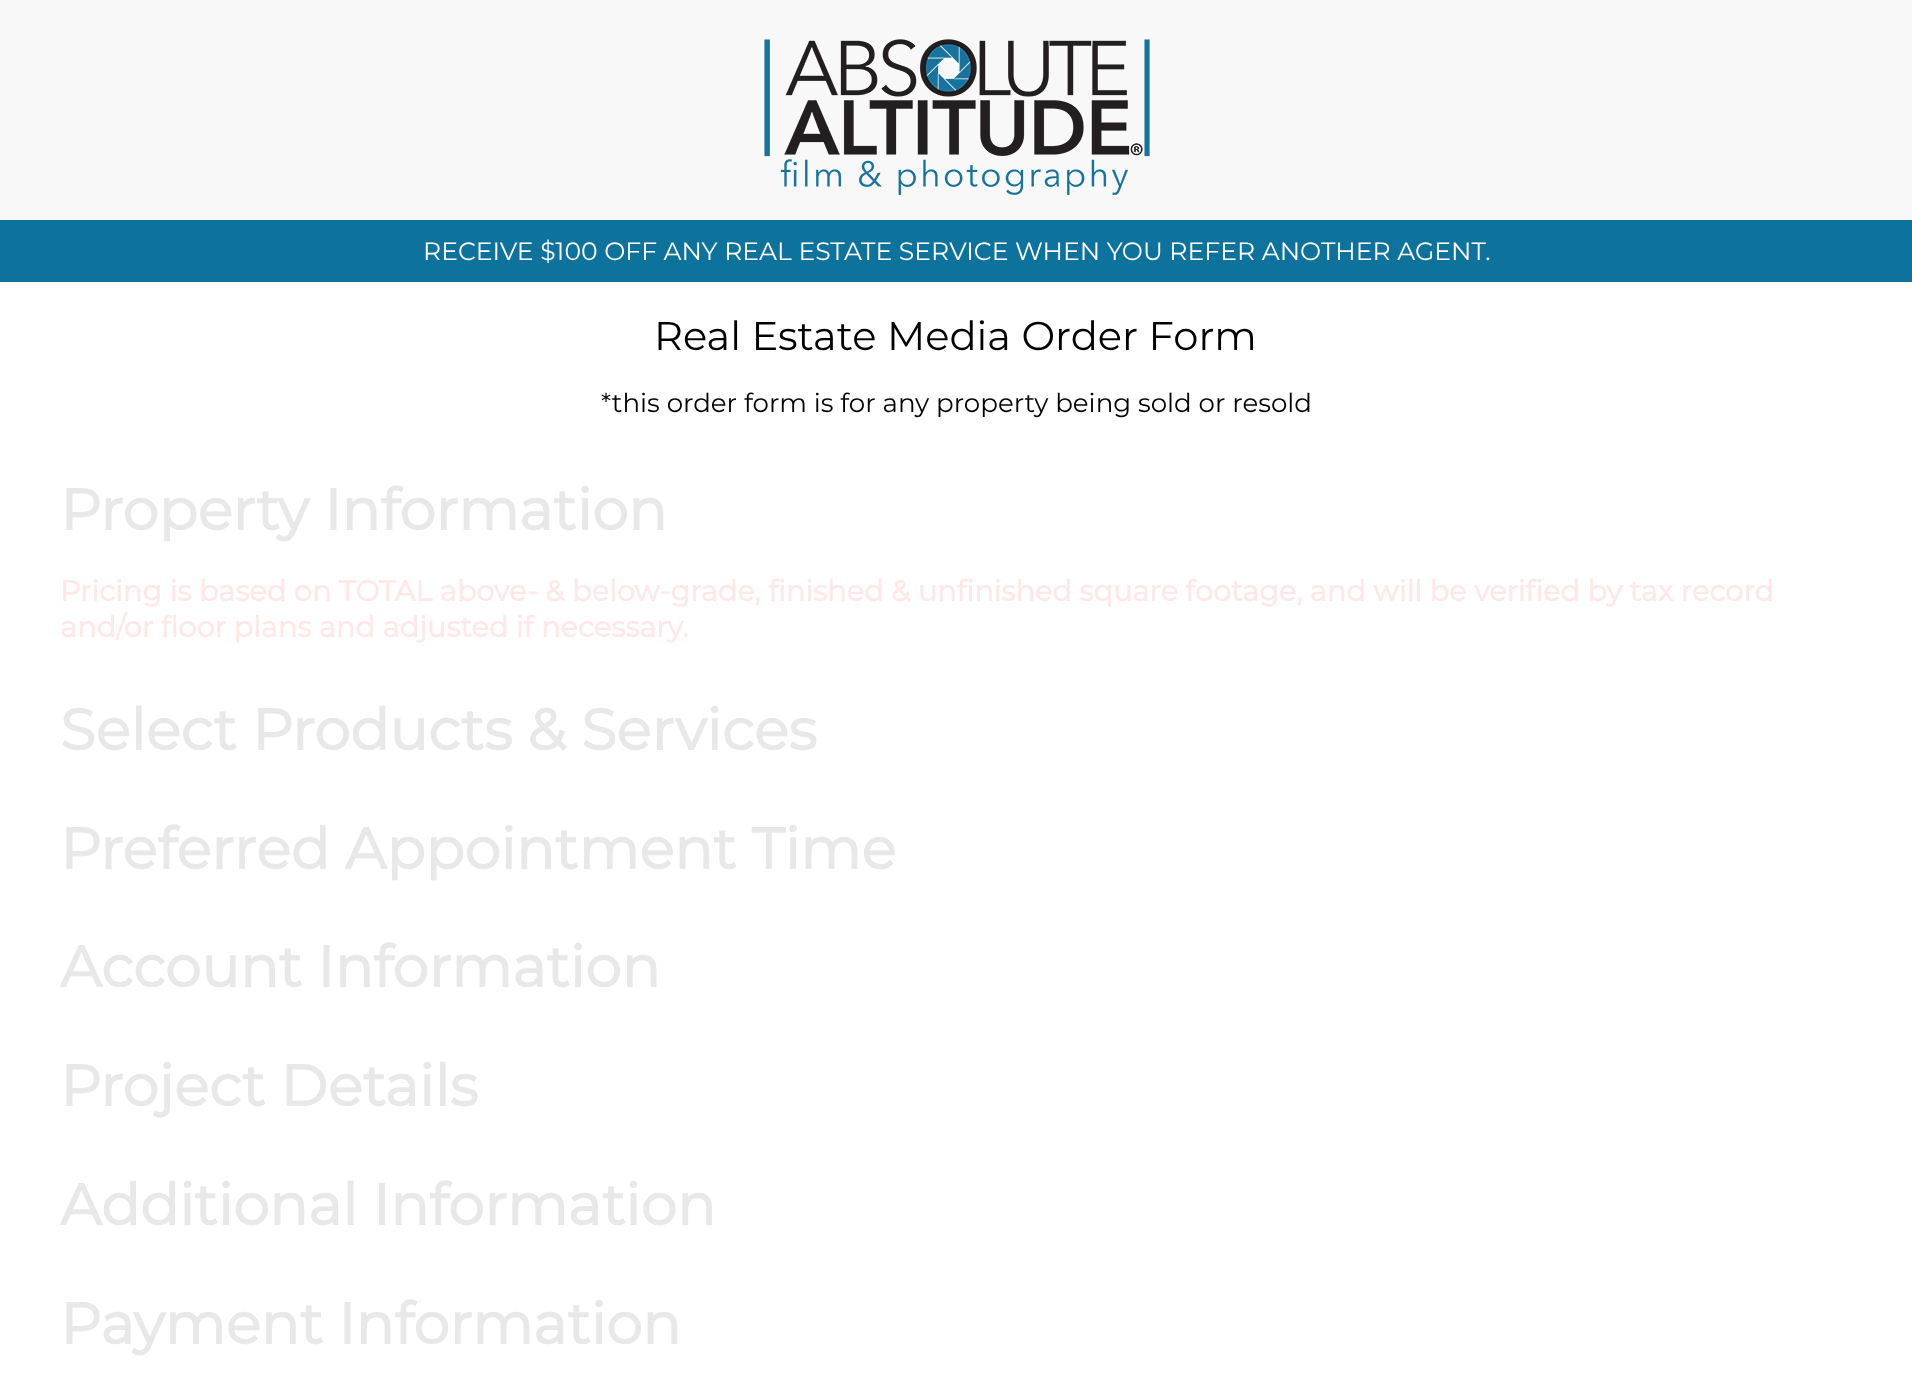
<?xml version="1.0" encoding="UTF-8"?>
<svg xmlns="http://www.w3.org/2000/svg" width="1912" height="1393">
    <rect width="100%" height="100%" fill="#FFFFFF"/>
    <rect x="0" y="0" width="1912" height="220" fill="#F8F8F8"/>
    <image x="764" y="39" width="386" height="156" href="img_01.png"/>
    <rect x="0" y="220" width="1912" height="62" fill="#0D739C"/>
    <text x="423" y="260" font-family="Montserrat" font-size="25.1" font-weight="100" fill="#FFFFFF">RECEIVE $100 OFF ANY REAL ESTATE SERVICE WHEN YOU REFER ANOTHER AGENT.</text>
    <text x="654" y="350" font-family="Montserrat" font-size="40.1" font-weight="100" fill="#000000">Real Estate Media Order Form</text>
    <text x="601" y="412" font-family="Montserrat" font-size="26.1" font-weight="100" fill="#000000">*this order form is for any property being sold or resold</text>
    <text x="60" y="530" font-family="Montserrat" font-size="57.6" font-weight="700" fill="#E8E8E8">Property Information</text>
    <text font-family="Montserrat" font-size="28.8" font-weight="700" fill="#FFE8E8">
        <tspan x="60" y="601">Pricing is based on TOTAL above- &amp; below-grade, finished &amp; unfinished square footage, and will be verified by tax record</tspan>
        <tspan x="60" y="637">and/or floor plans and adjusted if necessary.</tspan>
    </text>
    <text x="60" y="750" font-family="Montserrat" font-size="57.6" font-weight="700" fill="#E8E8E8">Select Products &amp; Services</text>
    <text x="60" y="869" font-family="Montserrat" font-size="57.6" font-weight="700" fill="#E8E8E8">Preferred Appointment Time</text>
    <text x="60" y="987" font-family="Montserrat" font-size="57.6" font-weight="700" fill="#E8E8E8">Account Information</text>
    <text x="60" y="1106" font-family="Montserrat" font-size="57.6" font-weight="700" fill="#E8E8E8">Project Details</text>
    <text x="60" y="1225" font-family="Montserrat" font-size="57.6" font-weight="700" fill="#E8E8E8">Additional Information</text>
    <text x="60" y="1344" font-family="Montserrat" font-size="57.6" font-weight="700" fill="#E8E8E8">Payment Information</text>
</svg>
